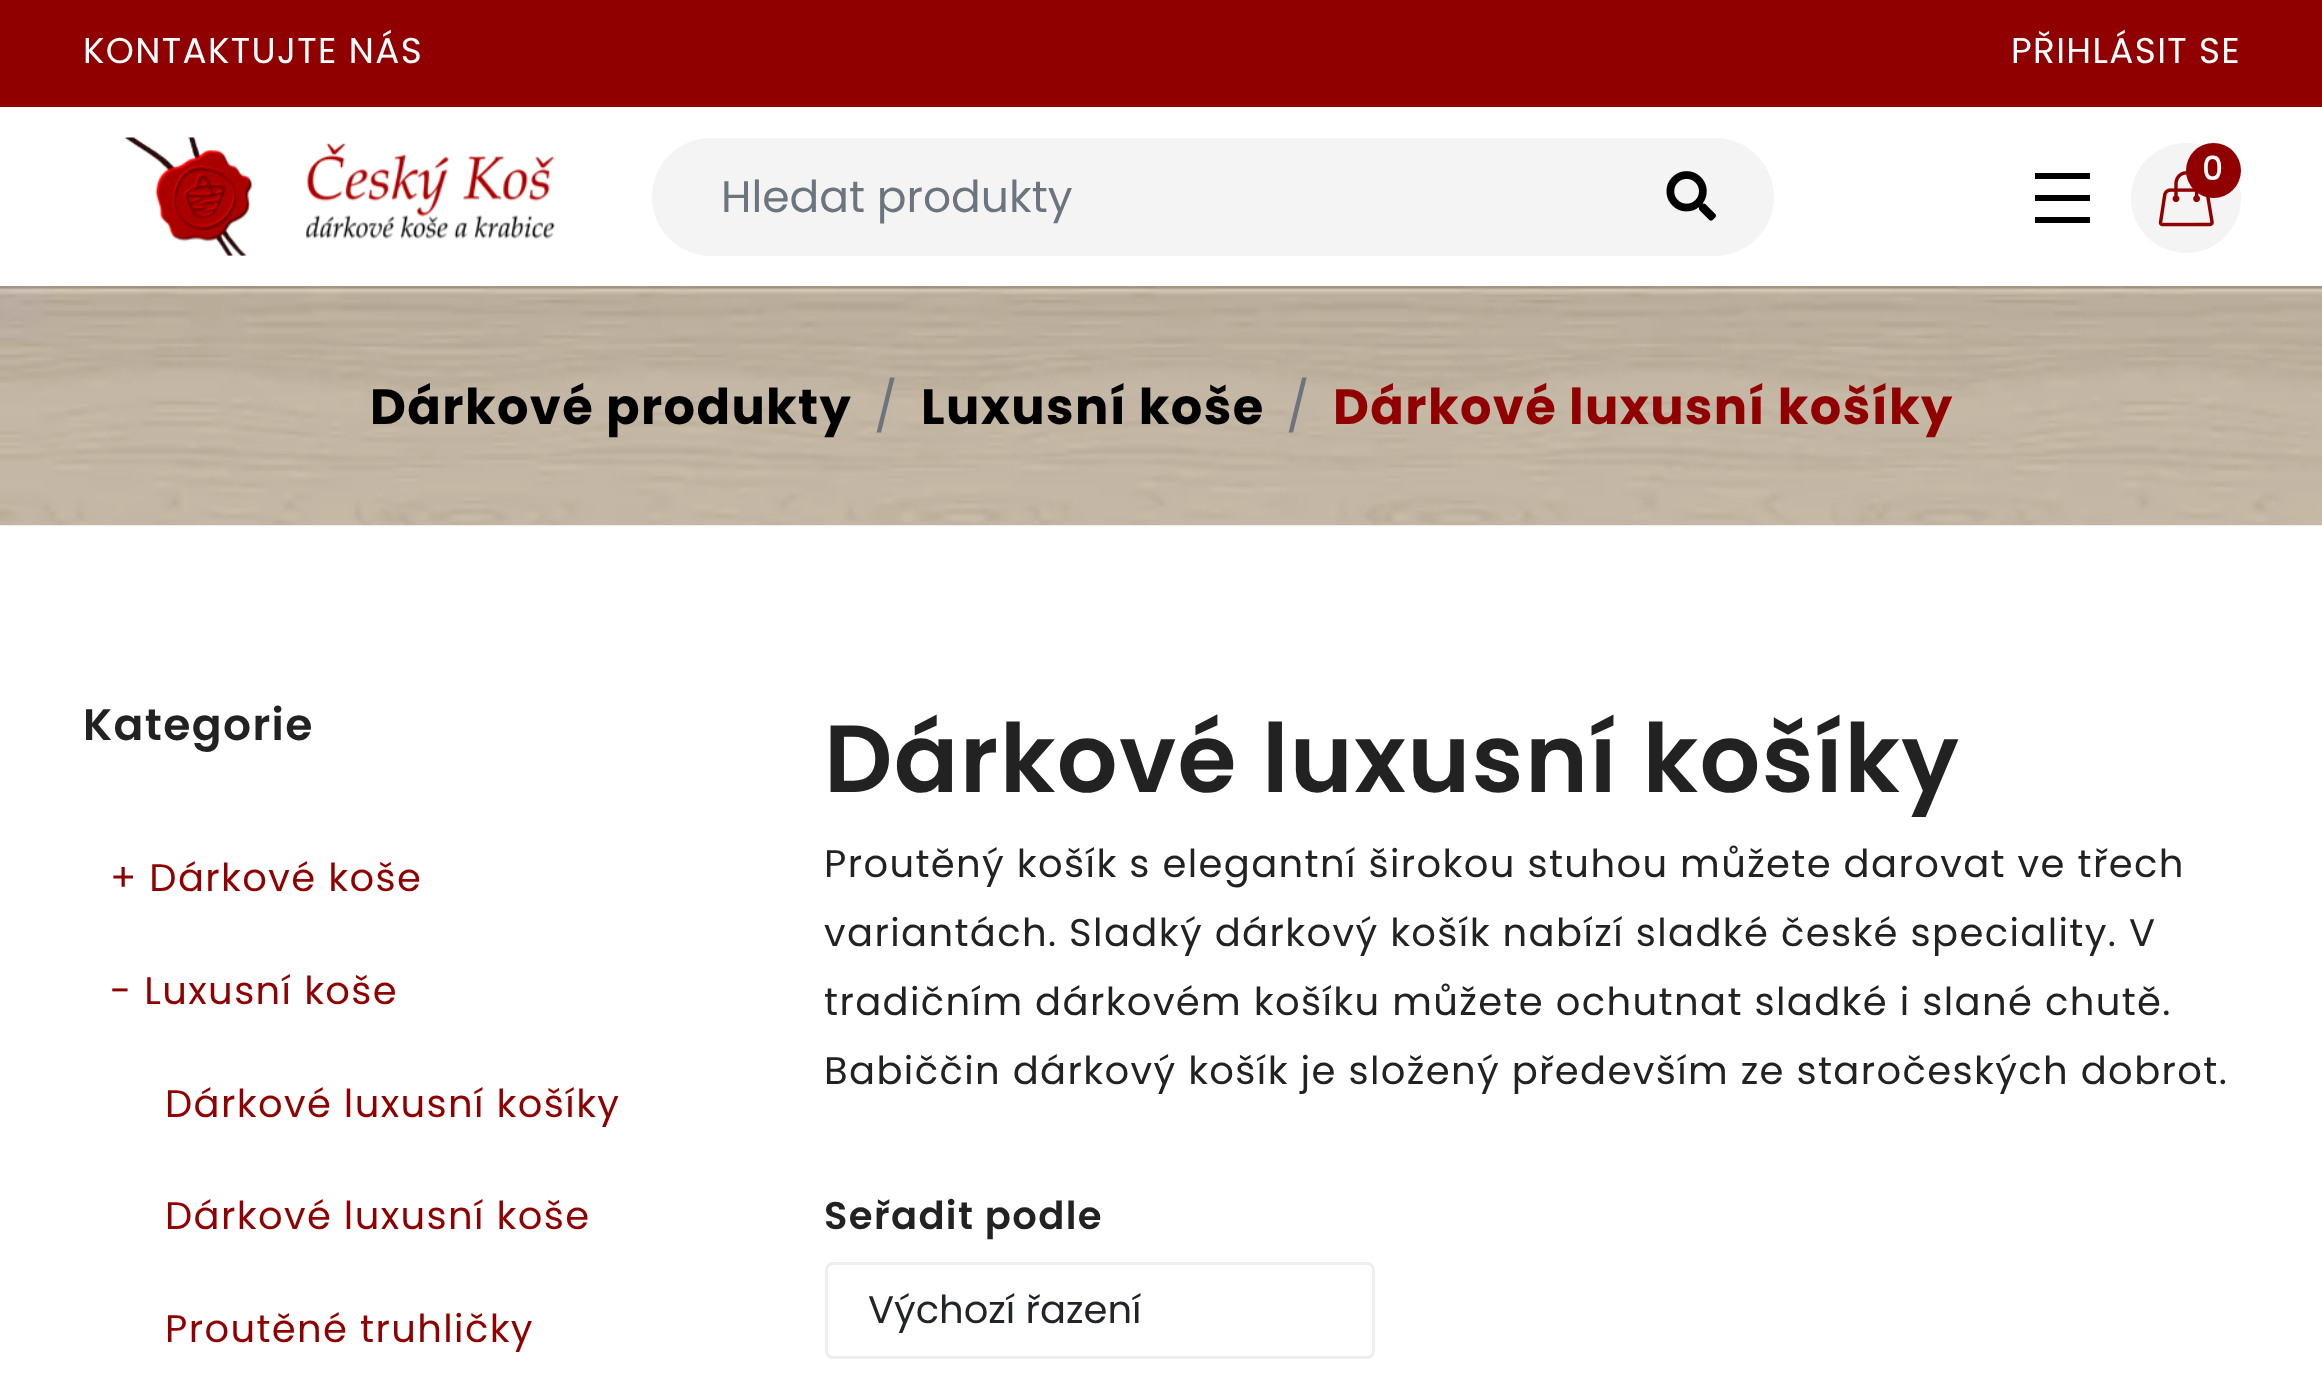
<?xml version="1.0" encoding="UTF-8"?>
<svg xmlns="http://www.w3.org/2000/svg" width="2322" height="1374">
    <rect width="100%" height="100%" fill="#910000"/>
    <text x="83" y="63" font-family="Poppins" font-size="35.75" letter-spacing="1.38" fill="#FFFFFF">KONTAKTUJTE NÁS</text>
    <text x="2011" y="63" font-family="Poppins" font-size="35.75" letter-spacing="1.38" fill="#FFFFFF">PŘIHLÁSIT SE</text>
    <rect x="0" y="107" width="2322" height="179" fill="#FFFFFF"/>
    <image x="124" y="137" width="431" height="119" href="img_01.png"/>
    <circle cx="2186" cy="198" r="55" fill="#F4F4F4"/>
    <image x="2158" y="171" width="56" height="56" href="img_02.png"/>
    <circle cx="2213.5" cy="170.5" r="27.5" fill="#910000"/>
    <text x="2202" y="180" font-family="Poppins" font-size="33" font-weight="500" letter-spacing="1.38" fill="#FFFFFF">0</text>
    <rect x="2035" y="195" width="55" height="6" fill="#000000"/>
    <rect x="2035" y="173" width="55" height="6" fill="#000000"/>
    <rect x="2035" y="217" width="55" height="6" fill="#000000"/>
    <rect x="652" y="138" width="1122" height="118" rx="59" fill="#F4F4F4"/>
    <text x="721" y="212" font-family="Poppins" font-size="44" fill="#6C757D">Hledat produkty</text>
    <image x="1666" y="171" width="50" height="50" href="img_03.png"/>
    <rect x="0" y="525" width="2322" height="849" fill="#FFFFFF"/>
    <image x="0" y="286" width="2322" height="240" href="img_04.png"/>
    <text x="370" y="424" font-family="Poppins" font-size="49.5" font-weight="700" letter-spacing="1.38" fill="#000000">Dárkové produkty</text>
    <text x="874" y="424" font-family="Poppins" font-size="49.5" letter-spacing="1.38" fill="#6C757D">/</text>
    <text x="921" y="424" font-family="Poppins" font-size="49.5" font-weight="700" letter-spacing="1.38" fill="#000000">Luxusní koše</text>
    <text x="1286" y="424" font-family="Poppins" font-size="49.5" letter-spacing="1.38" fill="#6C757D">/</text>
    <text x="1333" y="424" font-family="Poppins" font-size="49.5" font-weight="700" letter-spacing="1.38" fill="#910000">Dárkové luxusní košíky</text>
    <text x="83" y="740" font-family="Poppins" font-size="44" font-weight="600" letter-spacing="1.38" fill="#222222">Kategorie</text>
    <text x="110" y="891" font-family="Poppins" font-size="38.5" letter-spacing="1.38" fill="#910000">+ Dárkové koše</text>
    <text x="110" y="1004" font-family="Poppins" font-size="38.5" letter-spacing="1.38" fill="#910000">- Luxusní koše</text>
    <text x="165" y="1117" font-family="Poppins" font-size="38.5" letter-spacing="1.38" fill="#910000">Dárkové luxusní košíky</text>
    <text x="165" y="1229" font-family="Poppins" font-size="38.5" letter-spacing="1.38" fill="#910000">Dárkové luxusní koše</text>
    <text x="165" y="1342" font-family="Poppins" font-size="38.5" letter-spacing="1.38" fill="#910000">Proutěné truhličky</text>
    <text x="824" y="792" font-family="Poppins" font-size="95.4" font-weight="600" letter-spacing="1.38" fill="#222222">Dárkové luxusní košíky</text>
    <text font-family="Poppins" font-size="38.5" letter-spacing="1.38" fill="#222222">
        <tspan x="824" y="877">Proutěný košík s elegantní širokou stuhou můžete darovat ve třech</tspan>
        <tspan x="824" y="946">variantách. Sladký dárkový košík nabízí sladké české speciality. V</tspan>
        <tspan x="824" y="1015">tradičním dárkovém košíku můžete ochutnat sladké i slané chutě.</tspan>
        <tspan x="824" y="1084">Babiččin dárkový košík je složený především ze staročeských dobrot.</tspan>
    </text>
    <text x="824" y="1229" font-family="Poppins" font-size="38.5" font-weight="600" letter-spacing="1.38" fill="#222222">Seřadit podle</text>
    <rect x="826.5" y="1263.5" width="547" height="94" rx="6.5" fill="none" stroke="#EEEEEE" stroke-width="3"/>
    <text x="868" y="1323" font-family="Poppins" font-size="38.5" fill="#212529">Výchozí řazení</text>
</svg>
